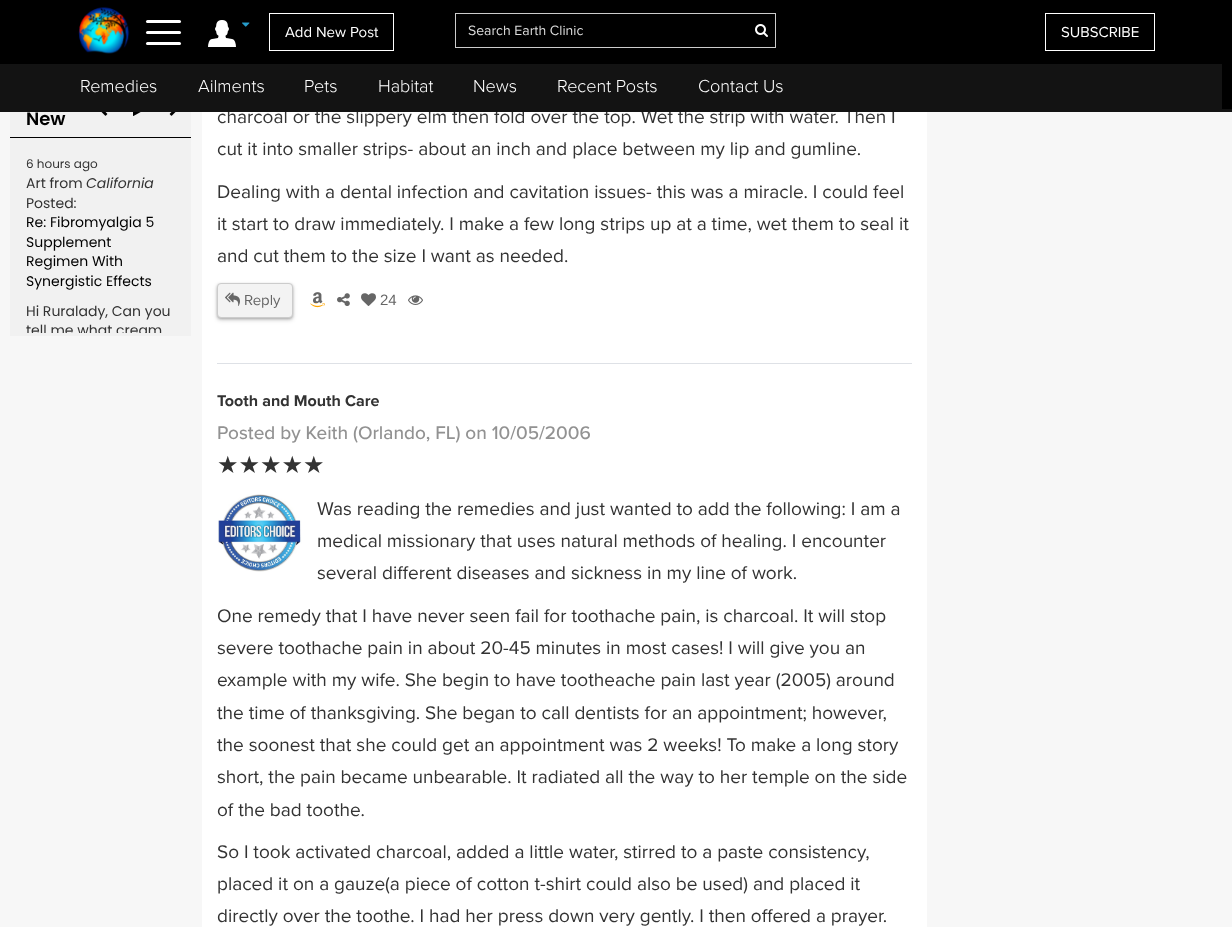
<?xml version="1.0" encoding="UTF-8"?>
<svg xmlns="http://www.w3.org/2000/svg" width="1232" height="927">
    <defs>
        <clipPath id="clip1"><rect x="10" y="138" width="181" height="195"/></clipPath>
        <filter id="blur1" x="-50%" y="-200%" width="200%" height="500%"><feGaussianBlur stdDeviation="2"/></filter>
        <filter id="blur2" x="-50%" y="-200%" width="200%" height="500%"><feGaussianBlur stdDeviation="1"/></filter>
    </defs>
    <rect width="100%" height="100%" fill="#FFFFFF"/>
    <rect x="0" y="0" width="1232" height="64" fill="#000000"/>
    <image x="78" y="7" width="52" height="47" href="img_01.png"/>
    <rect x="146" y="20" width="35" height="3" rx="1.5" fill="#FFFFFF"/>
    <rect x="146" y="31" width="35" height="3" rx="1.5" fill="#FFFFFF"/>
    <rect x="146" y="42" width="35" height="3" rx="1.5" fill="#FFFFFF"/>
    <image x="208" y="20" width="28" height="27" href="img_02.png"/>
    <image x="242" y="22" width="8" height="5" href="img_03.png"/>
    <rect x="269.5" y="13.5" width="124" height="37" fill="none" stroke="#FFFFFF"/>
    <text x="285" y="37" font-family="Proxima Nova" font-size="15" fill="#FFFFFF">Add New Post</text>
    <rect x="455.5" y="13.5" width="320" height="34" fill="none" stroke="#CCCCCC"/>
    <text x="468" y="35" font-family="Proxima Nova" font-size="14" fill="#DDDDDD">Search Earth Clinic</text>
    <image x="755" y="24" width="13" height="13" href="img_04.png"/>
    <rect x="1045.5" y="13.5" width="109" height="37" fill="none" stroke="#FFFFFF"/>
    <text x="1061" y="37" font-family="Proxima Nova" font-size="15" fill="#FFFFFF">SUBSCRIBE</text>
    <text x="217" y="123" font-family="Proxima Nova" font-size="19" fill="#333333">charcoal or the slippery elm then fold over the top. Wet the strip with water. Then I</text>
    <rect x="0" y="109" width="1232" height="3" fill="#131313"/>
    <rect x="1222" y="64" width="10" height="45" fill="#000000"/>
    <rect x="0" y="64" width="1222" height="45" fill="#131313"/>
    <text x="80" y="92" font-family="Proxima Nova" font-size="18" font-weight="300" fill="#FFFFFF">Remedies</text>
    <text x="198" y="92" font-family="Proxima Nova" font-size="18" font-weight="300" fill="#FFFFFF">Ailments</text>
    <text x="304" y="92" font-family="Proxima Nova" font-size="18" font-weight="300" fill="#FFFFFF">Pets</text>
    <text x="378" y="92" font-family="Proxima Nova" font-size="18" font-weight="300" fill="#FFFFFF">Habitat</text>
    <text x="473" y="92" font-family="Proxima Nova" font-size="18" font-weight="300" fill="#FFFFFF">News</text>
    <text x="557" y="92" font-family="Proxima Nova" font-size="18" font-weight="300" fill="#FFFFFF">Recent Posts</text>
    <text x="698" y="92" font-family="Proxima Nova" font-size="18" font-weight="300" fill="#FFFFFF">Contact Us</text>
    <rect x="0" y="112" width="202" height="815" fill="#F7F7F7"/>
    <rect x="10" y="112" width="181" height="224" fill="#F1F1F1"/>
    <rect x="10" y="137" width="181" height="1" fill="#000000"/>
    <text x="26" y="125" font-family="Poppins" font-size="18" font-weight="600" fill="#000000">New</text>
    <image x="101" y="112" width="7" height="4" href="img_05.png"/>
    <image x="133" y="112" width="8" height="4" href="img_06.png"/>
    <image x="169" y="112" width="7" height="4" href="img_07.png"/>
    <text x="26" y="168" font-family="Poppins" font-size="12" fill="#333333">6 hours ago</text>
    <text x="26" y="188" font-family="Poppins" font-size="14" fill="#333333">Art from</text>
    <text x="86" y="188" font-family="Poppins" font-size="14" font-style="italic" fill="#333333">California</text>
    <text x="26" y="208" font-family="Poppins" font-size="14" fill="#333333">Posted:</text>
    <text font-family="Poppins" font-size="14" fill="#000000">
        <tspan x="26" y="227">Re: Fibromyalgia 5</tspan>
        <tspan x="26" y="247">Supplement</tspan>
        <tspan x="26" y="266">Regimen With</tspan>
        <tspan x="26" y="286">Synergistic Effects</tspan>
    </text>
    <text x="26" y="316" font-family="Poppins" font-size="14" fill="#333333">Hi Ruralady, Can you</text>
    <g clip-path="url(#clip1)">
        <text x="26" y="335" font-family="Poppins" font-size="14" fill="#333333">tell me what cream</text>
    </g>
    <text x="217" y="155" font-family="Proxima Nova" font-size="19" fill="#333333">cut it into smaller strips- about an inch and place between my lip and gumline.</text>
    <text font-family="Proxima Nova" font-size="19" fill="#333333">
        <tspan x="217" y="198">Dealing with a dental infection and cavitation issues- this was a miracle. I could feel</tspan>
        <tspan x="217" y="230">it start to draw immediately. I make a few long strips up at a time, wet them to seal it</tspan>
        <tspan x="217" y="262">and cut them to the size I want as needed.</tspan>
    </text>
    <rect x="217" y="285" width="76" height="35" rx="4" fill="#000000" fill-opacity="0.19" filter="url(#blur1)"/>
    <rect x="217" y="284" width="76" height="35" rx="4" fill="#000000" fill-opacity="0.2" filter="url(#blur2)"/>
    <rect x="217.5" y="283.5" width="75" height="34" rx="3.5" fill="#F3F3F3" stroke="#CCCCCC"/>
    <image x="225" y="292" width="15" height="14" href="img_08.png"/>
    <text x="244" y="305" font-family="Proxima Nova" font-size="15" fill="#666666">Reply</text>
    <image x="310" y="292" width="15" height="16" href="img_09.png"/>
    <image x="337" y="293" width="13" height="13" href="img_10.png"/>
    <image x="361" y="293" width="15" height="13" href="img_11.png"/>
    <text x="380" y="305" font-family="Liberation Sans" font-size="15" fill="#666666">24</text>
    <image x="408" y="295" width="15" height="10" href="img_12.png"/>
    <rect x="217" y="363" width="695" height="1" fill="#DEE1E6"/>
    <text x="217" y="406" font-family="Proxima Nova" font-size="16.1" font-weight="700" fill="#333333">Tooth and Mouth Care</text>
    <text x="217" y="439" font-family="Proxima Nova" font-size="19" font-weight="500" fill="#929292">Posted by Keith (Orlando, FL) on 10/05/2006</text>
    <text x="217" y="473" font-family="DejaVu Sans" font-size="24" fill="#333333">★★★★★</text>
    <image x="218" y="494" width="84" height="78" href="img_13.png"/>
    <text font-family="Proxima Nova" font-size="19" fill="#333333">
        <tspan x="317" y="515">Was reading the remedies and just wanted to add the following: I am a</tspan>
        <tspan x="317" y="547">medical missionary that uses natural methods of healing. I encounter</tspan>
        <tspan x="317" y="579">several different diseases and sickness in my line of work.</tspan>
    </text>
    <text font-family="Proxima Nova" font-size="19" fill="#333333">
        <tspan x="217" y="622">One remedy that I have never seen fail for toothache pain, is charcoal. It will stop</tspan>
        <tspan x="217" y="654">severe toothache pain in about 20-45 minutes in most cases! I will give you an</tspan>
        <tspan x="217" y="686">example with my wife. She begin to have tootheache pain last year (2005) around</tspan>
        <tspan x="217" y="719">the time of thanksgiving. She began to call dentists for an appointment; however,</tspan>
        <tspan x="217" y="751">the soonest that she could get an appointment was 2 weeks! To make a long story</tspan>
        <tspan x="217" y="783">short, the pain became unbearable. It radiated all the way to her temple on the side</tspan>
        <tspan x="217" y="816">of the bad toothe.</tspan>
    </text>
    <text font-family="Proxima Nova" font-size="19" fill="#333333">
        <tspan x="217" y="858">So I took activated charcoal, added a little water, stirred to a paste consistency,</tspan>
        <tspan x="217" y="890">placed it on a gauze(a piece of cotton t-shirt could also be used) and placed it</tspan>
        <tspan x="217" y="922">directly over the toothe. I had her press down very gently. I then offered a prayer.</tspan>
    </text>
    <rect x="927" y="112" width="305" height="815" fill="#F7F7F7"/>
</svg>
